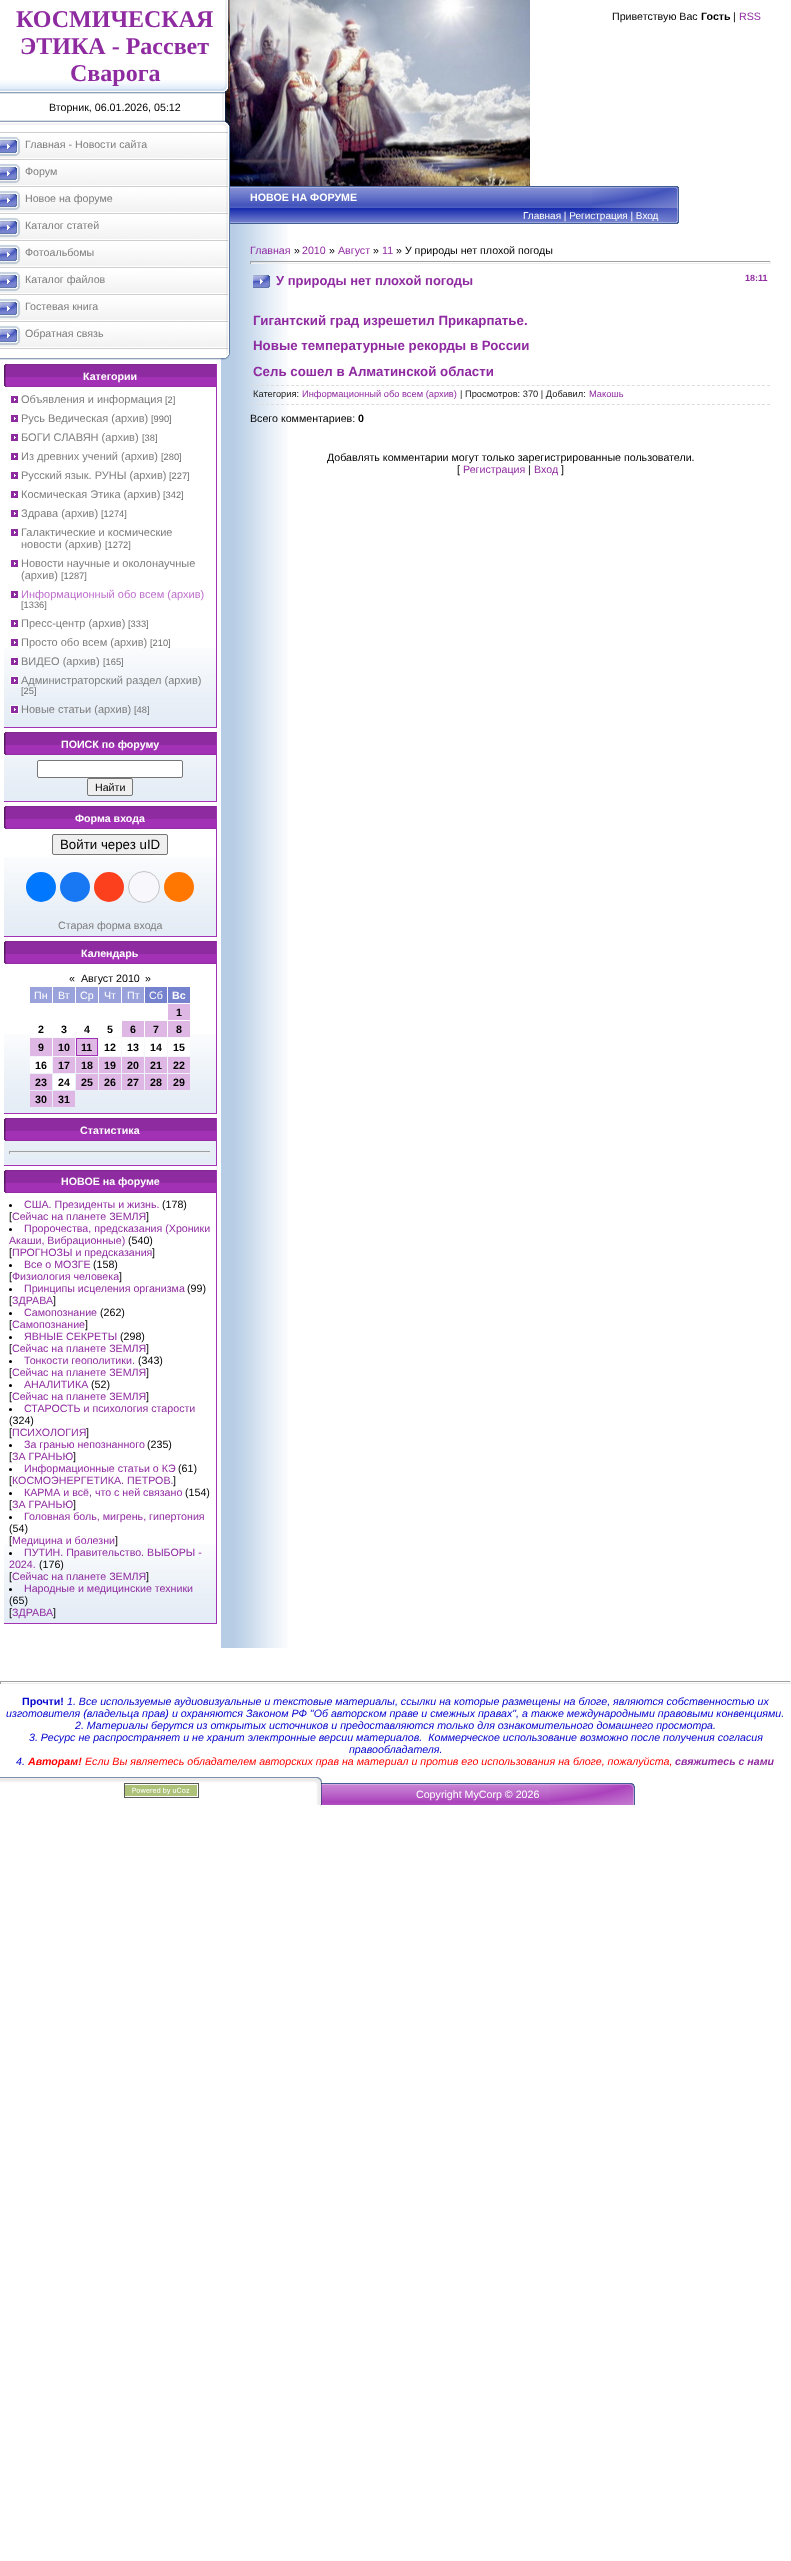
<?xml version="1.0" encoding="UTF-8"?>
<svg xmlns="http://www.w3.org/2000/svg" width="791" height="2561">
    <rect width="100%" height="100%" fill="#FFFFFF"/>
    <rect x="221" y="360" width="9" height="1288" fill="#B7CDE6"/>
    <image x="0" y="0" width="230" height="93" href="img_01.png"/>
    <text x="16" y="27" font-family="Liberation Serif" font-size="24" font-weight="700" fill="#8F2BA0">КОСМИЧЕСКАЯ</text>
    <text x="20" y="54" font-family="Liberation Serif" font-size="24" font-weight="700" fill="#8F2BA0">ЭТИКА - Рассвет</text>
    <text x="70" y="81" font-family="Liberation Serif" font-size="24" font-weight="700" fill="#8F2BA0">Сварога</text>
    <image x="0" y="93" width="230" height="28" href="img_02.png"/>
    <text x="49" y="111" font-family="Liberation Sans" font-size="10.67" fill="#000000">Вторник, 06.01.2026, 05:12</text>
    <image x="0" y="121" width="230" height="11" href="img_03.png"/>
    <image x="0" y="132" width="230" height="27" href="img_04.png"/>
    <text x="25" y="148" font-family="Liberation Sans" font-size="10.67" fill="#7D7D7D">Главная - Новости сайта</text>
    <image x="0" y="159" width="230" height="27" href="img_04.png"/>
    <text x="25" y="175" font-family="Liberation Sans" font-size="10.67" fill="#7D7D7D">Форум</text>
    <image x="0" y="186" width="230" height="27" href="img_04.png"/>
    <text x="25" y="202" font-family="Liberation Sans" font-size="10.67" fill="#7D7D7D">Новое на форуме</text>
    <image x="0" y="213" width="230" height="27" href="img_04.png"/>
    <text x="25" y="229" font-family="Liberation Sans" font-size="10.67" fill="#7D7D7D">Каталог статей</text>
    <image x="0" y="240" width="230" height="27" href="img_04.png"/>
    <text x="25" y="256" font-family="Liberation Sans" font-size="10.67" fill="#7D7D7D">Фотоальбомы</text>
    <image x="0" y="267" width="230" height="27" href="img_04.png"/>
    <text x="25" y="283" font-family="Liberation Sans" font-size="10.67" fill="#7D7D7D">Каталог файлов</text>
    <image x="0" y="294" width="230" height="27" href="img_04.png"/>
    <text x="25" y="310" font-family="Liberation Sans" font-size="10.67" fill="#7D7D7D">Гостевая книга</text>
    <image x="0" y="321" width="230" height="27" href="img_04.png"/>
    <text x="25" y="337" font-family="Liberation Sans" font-size="10.67" fill="#7D7D7D">Обратная связь</text>
    <image x="0" y="348" width="230" height="12" href="img_05.png"/>
    <rect x="216" y="364" width="1" height="364" fill="#A331B6"/>
    <rect x="4" y="727" width="213" height="1" fill="#A331B6"/>
    <image x="4" y="364" width="212" height="23" href="img_06.png"/>
    <text x="83" y="380" font-family="Liberation Sans" font-size="10.67" font-weight="700" fill="#FFFFFF">Категории</text>
    <image x="4" y="648" width="212" height="79" href="img_07.png"/>
    <image x="11" y="396" width="7" height="7" href="img_08.png"/>
    <text x="21" y="403" font-family="Liberation Sans" font-size="11" fill="#7D7D7D">Объявления и информация</text>
    <text x="165" y="403" font-family="Liberation Sans" font-size="9.3" fill="#6E6E6E">[2]</text>
    <image x="11" y="415" width="7" height="7" href="img_08.png"/>
    <text x="21" y="422" font-family="Liberation Sans" font-size="11" fill="#7D7D7D">Русь Ведическая (архив)</text>
    <text x="151" y="422" font-family="Liberation Sans" font-size="9.3" fill="#6E6E6E">[990]</text>
    <image x="11" y="434" width="7" height="7" href="img_08.png"/>
    <text x="21" y="441" font-family="Liberation Sans" font-size="11" fill="#7D7D7D">БОГИ СЛАВЯН (архив)</text>
    <text x="142" y="441" font-family="Liberation Sans" font-size="9.3" fill="#6E6E6E">[38]</text>
    <image x="11" y="453" width="7" height="7" href="img_08.png"/>
    <text x="21" y="460" font-family="Liberation Sans" font-size="11" fill="#7D7D7D">Из древних учений (архив)</text>
    <text x="161" y="460" font-family="Liberation Sans" font-size="9.3" fill="#6E6E6E">[280]</text>
    <image x="11" y="472" width="7" height="7" href="img_08.png"/>
    <text x="21" y="479" font-family="Liberation Sans" font-size="11" fill="#7D7D7D">Русский язык. РУНЫ (архив)</text>
    <text x="169" y="479" font-family="Liberation Sans" font-size="9.3" fill="#6E6E6E">[227]</text>
    <image x="11" y="491" width="7" height="7" href="img_08.png"/>
    <text x="21" y="498" font-family="Liberation Sans" font-size="11" fill="#7D7D7D">Космическая Этика (архив)</text>
    <text x="163" y="498" font-family="Liberation Sans" font-size="9.3" fill="#6E6E6E">[342]</text>
    <image x="11" y="510" width="7" height="7" href="img_08.png"/>
    <text x="21" y="517" font-family="Liberation Sans" font-size="11" fill="#7D7D7D">Здрава (архив)</text>
    <text x="101" y="517" font-family="Liberation Sans" font-size="9.3" fill="#6E6E6E">[1274]</text>
    <image x="11" y="529" width="7" height="7" href="img_08.png"/>
    <text font-family="Liberation Sans" font-size="11" fill="#7D7D7D">
        <tspan x="21" y="536">Галактические и космические</tspan>
        <tspan x="21" y="548">новости (архив)</tspan>
    </text>
    <text x="105" y="548" font-family="Liberation Sans" font-size="9.3" fill="#6E6E6E">[1272]</text>
    <image x="11" y="560" width="7" height="7" href="img_08.png"/>
    <text font-family="Liberation Sans" font-size="11" fill="#7D7D7D">
        <tspan x="21" y="567">Новости научные и околонаучные</tspan>
        <tspan x="21" y="579">(архив)</tspan>
    </text>
    <text x="61" y="579" font-family="Liberation Sans" font-size="9.3" fill="#6E6E6E">[1287]</text>
    <image x="11" y="591" width="7" height="7" href="img_08.png"/>
    <text x="21" y="598" font-family="Liberation Sans" font-size="11" fill="#BE6ECC">Информационный обо всем (архив)</text>
    <text x="21" y="608" font-family="Liberation Sans" font-size="9.3" fill="#6E6E6E">[1336]</text>
    <image x="11" y="620" width="7" height="7" href="img_08.png"/>
    <text x="21" y="627" font-family="Liberation Sans" font-size="11" fill="#7D7D7D">Пресс-центр (архив)</text>
    <text x="128" y="627" font-family="Liberation Sans" font-size="9.3" fill="#6E6E6E">[333]</text>
    <image x="11" y="639" width="7" height="7" href="img_08.png"/>
    <text x="21" y="646" font-family="Liberation Sans" font-size="11" fill="#7D7D7D">Просто обо всем (архив)</text>
    <text x="150" y="646" font-family="Liberation Sans" font-size="9.3" fill="#6E6E6E">[210]</text>
    <image x="10" y="657" width="9" height="9" href="img_09.png"/>
    <text x="21" y="665" font-family="Liberation Sans" font-size="11" fill="#7D7D7D">ВИДЕО (архив)</text>
    <text x="103" y="665" font-family="Liberation Sans" font-size="9.3" fill="#6E6E6E">[165]</text>
    <image x="10" y="676" width="9" height="9" href="img_09.png"/>
    <text x="21" y="684" font-family="Liberation Sans" font-size="11" fill="#7D7D7D">Администраторский раздел (архив)</text>
    <text x="21" y="694" font-family="Liberation Sans" font-size="9.3" fill="#6E6E6E">[25]</text>
    <image x="10" y="705" width="9" height="9" href="img_09.png"/>
    <text x="21" y="713" font-family="Liberation Sans" font-size="11" fill="#7D7D7D">Новые статьи (архив)</text>
    <text x="134" y="713" font-family="Liberation Sans" font-size="9.3" fill="#6E6E6E">[48]</text>
    <rect x="216" y="732" width="1" height="70" fill="#A331B6"/>
    <rect x="4" y="801" width="213" height="1" fill="#A331B6"/>
    <image x="4" y="732" width="212" height="23" href="img_06.png"/>
    <text x="61" y="748" font-family="Liberation Sans" font-size="10.67" font-weight="700" fill="#FFFFFF">ПОИСК по форуму</text>
    <image x="4" y="755" width="212" height="46" href="img_10.png"/>
    <rect x="37.5" y="760.5" width="145" height="17" rx="1.5" fill="#FFFFFF" stroke="#767676"/>
    <rect x="87.5" y="778.5" width="45" height="17" rx="1.5" fill="#EFEFEF" stroke="#767676"/>
    <text x="95" y="791" font-family="Liberation Sans" font-size="10.67" fill="#000000">Найти</text>
    <rect x="216" y="806" width="1" height="131" fill="#A331B6"/>
    <rect x="4" y="936" width="213" height="1" fill="#A331B6"/>
    <image x="4" y="806" width="212" height="23" href="img_06.png"/>
    <text x="75" y="822" font-family="Liberation Sans" font-size="10.67" font-weight="700" fill="#FFFFFF">Форма входа</text>
    <image x="4" y="857" width="212" height="79" href="img_07.png"/>
    <rect x="52.5" y="834.5" width="115" height="20" rx="1.5" fill="#EFEFEF" stroke="#767676"/>
    <text x="60" y="849" font-family="Liberation Sans" font-size="13.3" fill="#000000">Войти через uID</text>
    <circle cx="41" cy="887" r="15" fill="#0077FF"/>
    <circle cx="75" cy="887" r="15" fill="#1877F2"/>
    <circle cx="109" cy="887" r="15" fill="#FC3F1D"/>
    <circle cx="144" cy="887" r="15.5" fill="#F8F8FC" stroke="#C4C4C4"/>
    <circle cx="179" cy="887" r="15" fill="#FF7700"/>
    <text x="58" y="929" font-family="Liberation Sans" font-size="10.67" fill="#7D7D7D">Старая форма входа</text>
    <rect x="216" y="941" width="1" height="173" fill="#A331B6"/>
    <rect x="4" y="1113" width="213" height="1" fill="#A331B6"/>
    <image x="4" y="941" width="212" height="23" href="img_06.png"/>
    <text x="81" y="957" font-family="Liberation Sans" font-size="10.67" font-weight="700" fill="#FFFFFF">Календарь</text>
    <image x="4" y="1034" width="212" height="79" href="img_07.png"/>
    <text x="69" y="982" font-family="Liberation Sans" font-size="10.67" fill="#000000">«</text>
    <text x="81" y="982" font-family="Liberation Sans" font-size="10.67" fill="#000000">Август 2010</text>
    <text x="145" y="982" font-family="Liberation Sans" font-size="10.67" fill="#000000">»</text>
    <rect x="30" y="987" width="22" height="16" fill="#99A2DB"/>
    <text x="34" y="999" font-family="Liberation Sans" font-size="10.67" fill="#FFFFFF">Пн</text>
    <rect x="53" y="987" width="22" height="16" fill="#99A2DB"/>
    <text x="58" y="999" font-family="Liberation Sans" font-size="10.67" fill="#FFFFFF">Вт</text>
    <rect x="76" y="987" width="22" height="16" fill="#99A2DB"/>
    <text x="80" y="999" font-family="Liberation Sans" font-size="10.67" fill="#FFFFFF">Ср</text>
    <rect x="99" y="987" width="22" height="16" fill="#99A2DB"/>
    <text x="104" y="999" font-family="Liberation Sans" font-size="10.67" fill="#FFFFFF">Чт</text>
    <rect x="122" y="987" width="22" height="16" fill="#99A2DB"/>
    <text x="127" y="999" font-family="Liberation Sans" font-size="10.67" fill="#FFFFFF">Пт</text>
    <rect x="145" y="987" width="22" height="16" fill="#7582CE"/>
    <text x="149" y="999" font-family="Liberation Sans" font-size="10.67" fill="#FFFFFF">Сб</text>
    <rect x="168" y="987" width="22" height="16" fill="#7582CE"/>
    <text x="172" y="999" font-family="Liberation Sans" font-size="10.67" font-weight="700" fill="#FFFFFF">Вс</text>
    <rect x="168" y="1004" width="22" height="16" fill="#DEB7E4"/>
    <text x="176" y="1016" font-family="Liberation Sans" font-size="10.67" font-weight="700" fill="#000000">1</text>
    <rect x="30" y="1034" width="22" height="3" fill="#FFFFFF"/>
    <text x="38" y="1033" font-family="Liberation Sans" font-size="10.67" font-weight="700" fill="#000000">2</text>
    <rect x="53" y="1034" width="22" height="3" fill="#FFFFFF"/>
    <text x="61" y="1033" font-family="Liberation Sans" font-size="10.67" font-weight="700" fill="#000000">3</text>
    <rect x="76" y="1034" width="22" height="3" fill="#FFFFFF"/>
    <text x="84" y="1033" font-family="Liberation Sans" font-size="10.67" font-weight="700" fill="#000000">4</text>
    <rect x="99" y="1034" width="22" height="3" fill="#FFFFFF"/>
    <text x="107" y="1033" font-family="Liberation Sans" font-size="10.67" font-weight="700" fill="#000000">5</text>
    <rect x="122" y="1021" width="22" height="16" fill="#DEB7E4"/>
    <text x="130" y="1033" font-family="Liberation Sans" font-size="10.67" font-weight="700" fill="#000000">6</text>
    <rect x="145" y="1021" width="22" height="16" fill="#DEB7E4"/>
    <text x="153" y="1033" font-family="Liberation Sans" font-size="10.67" font-weight="700" fill="#000000">7</text>
    <rect x="168" y="1021" width="22" height="16" fill="#DEB7E4"/>
    <text x="176" y="1033" font-family="Liberation Sans" font-size="10.67" font-weight="700" fill="#000000">8</text>
    <rect x="30" y="1038" width="22" height="18" fill="#DEB7E4"/>
    <text x="38" y="1051" font-family="Liberation Sans" font-size="10.67" font-weight="700" fill="#000000">9</text>
    <rect x="53" y="1038" width="22" height="18" fill="#DEB7E4"/>
    <text x="58" y="1051" font-family="Liberation Sans" font-size="10.67" font-weight="700" fill="#000000">10</text>
    <rect x="76.5" y="1038.5" width="21" height="17" fill="#DEB7E4" stroke="#A331B6"/>
    <text x="81" y="1051" font-family="Liberation Sans" font-size="10.67" font-weight="700" fill="#000000">11</text>
    <rect x="99" y="1038" width="22" height="18" fill="#FFFFFF"/>
    <text x="104" y="1051" font-family="Liberation Sans" font-size="10.67" font-weight="700" fill="#000000">12</text>
    <rect x="122" y="1038" width="22" height="18" fill="#FFFFFF"/>
    <text x="127" y="1051" font-family="Liberation Sans" font-size="10.67" font-weight="700" fill="#000000">13</text>
    <rect x="145" y="1038" width="22" height="18" fill="#FFFFFF"/>
    <text x="150" y="1051" font-family="Liberation Sans" font-size="10.67" font-weight="700" fill="#000000">14</text>
    <rect x="168" y="1038" width="22" height="18" fill="#FFFFFF"/>
    <text x="173" y="1051" font-family="Liberation Sans" font-size="10.67" font-weight="700" fill="#000000">15</text>
    <rect x="30" y="1057" width="22" height="16" fill="#FFFFFF"/>
    <text x="35" y="1069" font-family="Liberation Sans" font-size="10.67" font-weight="700" fill="#000000">16</text>
    <rect x="53" y="1057" width="22" height="16" fill="#DEB7E4"/>
    <text x="58" y="1069" font-family="Liberation Sans" font-size="10.67" font-weight="700" fill="#000000">17</text>
    <rect x="76" y="1057" width="22" height="16" fill="#DEB7E4"/>
    <text x="81" y="1069" font-family="Liberation Sans" font-size="10.67" font-weight="700" fill="#000000">18</text>
    <rect x="99" y="1057" width="22" height="16" fill="#DEB7E4"/>
    <text x="104" y="1069" font-family="Liberation Sans" font-size="10.67" font-weight="700" fill="#000000">19</text>
    <rect x="122" y="1057" width="22" height="16" fill="#DEB7E4"/>
    <text x="127" y="1069" font-family="Liberation Sans" font-size="10.67" font-weight="700" fill="#000000">20</text>
    <rect x="145" y="1057" width="22" height="16" fill="#DEB7E4"/>
    <text x="150" y="1069" font-family="Liberation Sans" font-size="10.67" font-weight="700" fill="#000000">21</text>
    <rect x="168" y="1057" width="22" height="16" fill="#DEB7E4"/>
    <text x="173" y="1069" font-family="Liberation Sans" font-size="10.67" font-weight="700" fill="#000000">22</text>
    <rect x="30" y="1074" width="22" height="16" fill="#DEB7E4"/>
    <text x="35" y="1086" font-family="Liberation Sans" font-size="10.67" font-weight="700" fill="#000000">23</text>
    <rect x="53" y="1074" width="22" height="16" fill="#FFFFFF"/>
    <text x="58" y="1086" font-family="Liberation Sans" font-size="10.67" font-weight="700" fill="#000000">24</text>
    <rect x="76" y="1074" width="22" height="16" fill="#DEB7E4"/>
    <text x="81" y="1086" font-family="Liberation Sans" font-size="10.67" font-weight="700" fill="#000000">25</text>
    <rect x="99" y="1074" width="22" height="16" fill="#DEB7E4"/>
    <text x="104" y="1086" font-family="Liberation Sans" font-size="10.67" font-weight="700" fill="#000000">26</text>
    <rect x="122" y="1074" width="22" height="16" fill="#DEB7E4"/>
    <text x="127" y="1086" font-family="Liberation Sans" font-size="10.67" font-weight="700" fill="#000000">27</text>
    <rect x="145" y="1074" width="22" height="16" fill="#DEB7E4"/>
    <text x="150" y="1086" font-family="Liberation Sans" font-size="10.67" font-weight="700" fill="#000000">28</text>
    <rect x="168" y="1074" width="22" height="16" fill="#DEB7E4"/>
    <text x="173" y="1086" font-family="Liberation Sans" font-size="10.67" font-weight="700" fill="#000000">29</text>
    <rect x="30" y="1091" width="22" height="16" fill="#DEB7E4"/>
    <text x="35" y="1103" font-family="Liberation Sans" font-size="10.67" font-weight="700" fill="#000000">30</text>
    <rect x="53" y="1091" width="22" height="16" fill="#DEB7E4"/>
    <text x="58" y="1103" font-family="Liberation Sans" font-size="10.67" font-weight="700" fill="#000000">31</text>
    <rect x="216" y="1118" width="1" height="48" fill="#A331B6"/>
    <rect x="4" y="1165" width="213" height="1" fill="#A331B6"/>
    <image x="4" y="1118" width="212" height="23" href="img_06.png"/>
    <text x="80" y="1134" font-family="Liberation Sans" font-size="10.67" font-weight="700" fill="#FFFFFF">Статистика</text>
    <image x="4" y="1141" width="212" height="24" href="img_11.png"/>
    <rect x="9" y="1151" width="202" height="1" fill="#9F9F9F"/>
    <rect x="210" y="1151" width="1" height="3" fill="#EEEEEE"/>
    <rect x="9" y="1153" width="202" height="1" fill="#EEEEEE"/>
    <rect x="9" y="1151" width="1" height="3" fill="#9F9F9F"/>
    <rect x="216" y="1170" width="1" height="454" fill="#A331B6"/>
    <rect x="4" y="1623" width="213" height="1" fill="#A331B6"/>
    <image x="4" y="1170" width="212" height="23" href="img_06.png"/>
    <text x="61" y="1185" font-family="Liberation Sans" font-size="10.67" font-weight="700" fill="#FFFFFF">НОВОЕ на форуме</text>
    <image x="4" y="1544" width="212" height="79" href="img_07.png"/>
    <circle cx="10.5" cy="1205.5" r="1.5" fill="#000000"/>
    <text x="24" y="1208" font-family="Liberation Sans" font-size="10.67" fill="#8F2BA0">США. Президенты и жизнь.</text>
    <text x="162" y="1208" font-family="Liberation Sans" font-size="10.67" fill="#000000">(178)</text>
    <text x="9" y="1220" font-family="Liberation Sans" font-size="10.67" fill="#000000">[</text>
    <text x="12" y="1220" font-family="Liberation Sans" font-size="10.67" fill="#8F2BA0">Сейчас на планете ЗЕМЛЯ</text>
    <text x="146" y="1220" font-family="Liberation Sans" font-size="10.67" fill="#000000">]</text>
    <circle cx="10.5" cy="1229.5" r="1.5" fill="#000000"/>
    <text x="24" y="1232" font-family="Liberation Sans" font-size="10.67" fill="#8F2BA0">Пророчества, предсказания (Хроники</text>
    <text x="9" y="1244" font-family="Liberation Sans" font-size="10.67" fill="#8F2BA0">Акаши, Вибрационные)</text>
    <text x="128" y="1244" font-family="Liberation Sans" font-size="10.67" fill="#000000">(540)</text>
    <text x="9" y="1256" font-family="Liberation Sans" font-size="10.67" fill="#000000">[</text>
    <text x="12" y="1256" font-family="Liberation Sans" font-size="10.67" fill="#8F2BA0">ПРОГНОЗЫ и предсказания</text>
    <text x="152" y="1256" font-family="Liberation Sans" font-size="10.67" fill="#000000">]</text>
    <circle cx="10.5" cy="1265.5" r="1.5" fill="#000000"/>
    <text x="24" y="1268" font-family="Liberation Sans" font-size="10.67" fill="#8F2BA0">Все о МОЗГЕ</text>
    <text x="93" y="1268" font-family="Liberation Sans" font-size="10.67" fill="#000000">(158)</text>
    <text x="9" y="1280" font-family="Liberation Sans" font-size="10.67" fill="#000000">[</text>
    <text x="12" y="1280" font-family="Liberation Sans" font-size="10.67" fill="#8F2BA0">Физиология человека</text>
    <text x="119" y="1280" font-family="Liberation Sans" font-size="10.67" fill="#000000">]</text>
    <circle cx="10.5" cy="1289.5" r="1.5" fill="#000000"/>
    <text x="24" y="1292" font-family="Liberation Sans" font-size="10.67" fill="#8F2BA0">Принципы исцеления организма</text>
    <text x="187" y="1292" font-family="Liberation Sans" font-size="10.67" fill="#000000">(99)</text>
    <text x="9" y="1304" font-family="Liberation Sans" font-size="10.67" fill="#000000">[</text>
    <text x="12" y="1304" font-family="Liberation Sans" font-size="10.67" fill="#8F2BA0">ЗДРАВА</text>
    <text x="53" y="1304" font-family="Liberation Sans" font-size="10.67" fill="#000000">]</text>
    <circle cx="10.5" cy="1313.5" r="1.5" fill="#000000"/>
    <text x="24" y="1316" font-family="Liberation Sans" font-size="10.67" fill="#8F2BA0">Самопознание</text>
    <text x="100" y="1316" font-family="Liberation Sans" font-size="10.67" fill="#000000">(262)</text>
    <text x="9" y="1328" font-family="Liberation Sans" font-size="10.67" fill="#000000">[</text>
    <text x="12" y="1328" font-family="Liberation Sans" font-size="10.67" fill="#8F2BA0">Самопознание</text>
    <text x="85" y="1328" font-family="Liberation Sans" font-size="10.67" fill="#000000">]</text>
    <circle cx="10.5" cy="1337.5" r="1.5" fill="#000000"/>
    <text x="24" y="1340" font-family="Liberation Sans" font-size="10.67" fill="#8F2BA0">ЯВНЫЕ СЕКРЕТЫ</text>
    <text x="120" y="1340" font-family="Liberation Sans" font-size="10.67" fill="#000000">(298)</text>
    <text x="9" y="1352" font-family="Liberation Sans" font-size="10.67" fill="#000000">[</text>
    <text x="12" y="1352" font-family="Liberation Sans" font-size="10.67" fill="#8F2BA0">Сейчас на планете ЗЕМЛЯ</text>
    <text x="146" y="1352" font-family="Liberation Sans" font-size="10.67" fill="#000000">]</text>
    <circle cx="10.5" cy="1361.5" r="1.5" fill="#000000"/>
    <text x="24" y="1364" font-family="Liberation Sans" font-size="10.67" fill="#8F2BA0">Тонкости геополитики.</text>
    <text x="138" y="1364" font-family="Liberation Sans" font-size="10.67" fill="#000000">(343)</text>
    <text x="9" y="1376" font-family="Liberation Sans" font-size="10.67" fill="#000000">[</text>
    <text x="12" y="1376" font-family="Liberation Sans" font-size="10.67" fill="#8F2BA0">Сейчас на планете ЗЕМЛЯ</text>
    <text x="146" y="1376" font-family="Liberation Sans" font-size="10.67" fill="#000000">]</text>
    <circle cx="10.5" cy="1385.5" r="1.5" fill="#000000"/>
    <text x="24" y="1388" font-family="Liberation Sans" font-size="10.67" fill="#8F2BA0">АНАЛИТИКА</text>
    <text x="91" y="1388" font-family="Liberation Sans" font-size="10.67" fill="#000000">(52)</text>
    <text x="9" y="1400" font-family="Liberation Sans" font-size="10.67" fill="#000000">[</text>
    <text x="12" y="1400" font-family="Liberation Sans" font-size="10.67" fill="#8F2BA0">Сейчас на планете ЗЕМЛЯ</text>
    <text x="146" y="1400" font-family="Liberation Sans" font-size="10.67" fill="#000000">]</text>
    <circle cx="10.5" cy="1409.5" r="1.5" fill="#000000"/>
    <text x="24" y="1412" font-family="Liberation Sans" font-size="10.67" fill="#8F2BA0">СТАРОСТЬ и психология старости</text>
    <text font-family="Liberation Sans" font-size="10.67" fill="#000000">
        <tspan x="9" y="1424">(324)</tspan>
        <tspan x="9" y="1436">[</tspan>
    </text>
    <text x="12" y="1436" font-family="Liberation Sans" font-size="10.67" fill="#8F2BA0">ПСИХОЛОГИЯ</text>
    <text x="86" y="1436" font-family="Liberation Sans" font-size="10.67" fill="#000000">]</text>
    <circle cx="10.5" cy="1445.5" r="1.5" fill="#000000"/>
    <text x="24" y="1448" font-family="Liberation Sans" font-size="10.67" fill="#8F2BA0">За гранью непознанного</text>
    <text x="147" y="1448" font-family="Liberation Sans" font-size="10.67" fill="#000000">(235)</text>
    <text x="9" y="1460" font-family="Liberation Sans" font-size="10.67" fill="#000000">[</text>
    <text x="12" y="1460" font-family="Liberation Sans" font-size="10.67" fill="#8F2BA0">ЗА ГРАНЬЮ</text>
    <text x="73" y="1460" font-family="Liberation Sans" font-size="10.67" fill="#000000">]</text>
    <circle cx="10.5" cy="1469.5" r="1.5" fill="#000000"/>
    <text x="24" y="1472" font-family="Liberation Sans" font-size="10.67" fill="#8F2BA0">Информационные статьи о КЭ</text>
    <text x="178" y="1472" font-family="Liberation Sans" font-size="10.67" fill="#000000">(61)</text>
    <text x="9" y="1484" font-family="Liberation Sans" font-size="10.67" fill="#000000">[</text>
    <text x="12" y="1484" font-family="Liberation Sans" font-size="10.67" fill="#8F2BA0">КОСМОЭНЕРГЕТИКА. ПЕТРОВ.</text>
    <text x="173" y="1484" font-family="Liberation Sans" font-size="10.67" fill="#000000">]</text>
    <circle cx="10.5" cy="1493.5" r="1.5" fill="#000000"/>
    <text x="24" y="1496" font-family="Liberation Sans" font-size="10.67" fill="#8F2BA0">КАРМА и всё, что с ней связано</text>
    <text x="185" y="1496" font-family="Liberation Sans" font-size="10.67" fill="#000000">(154)</text>
    <text x="9" y="1508" font-family="Liberation Sans" font-size="10.67" fill="#000000">[</text>
    <text x="12" y="1508" font-family="Liberation Sans" font-size="10.67" fill="#8F2BA0">ЗА ГРАНЬЮ</text>
    <text x="73" y="1508" font-family="Liberation Sans" font-size="10.67" fill="#000000">]</text>
    <circle cx="10.5" cy="1517.5" r="1.5" fill="#000000"/>
    <text x="24" y="1520" font-family="Liberation Sans" font-size="10.67" fill="#8F2BA0">Головная боль, мигрень, гипертония</text>
    <text font-family="Liberation Sans" font-size="10.67" fill="#000000">
        <tspan x="9" y="1532">(54)</tspan>
        <tspan x="9" y="1544">[</tspan>
    </text>
    <text x="12" y="1544" font-family="Liberation Sans" font-size="10.67" fill="#8F2BA0">Медицина и болезни</text>
    <text x="115" y="1544" font-family="Liberation Sans" font-size="10.67" fill="#000000">]</text>
    <circle cx="10.5" cy="1553.5" r="1.5" fill="#000000"/>
    <text x="24" y="1556" font-family="Liberation Sans" font-size="10.67" fill="#8F2BA0">ПУТИН. Правительство. ВЫБОРЫ -</text>
    <text x="9" y="1568" font-family="Liberation Sans" font-size="10.67" fill="#8F2BA0">2024.</text>
    <text x="39" y="1568" font-family="Liberation Sans" font-size="10.67" fill="#000000">(176)</text>
    <text x="9" y="1580" font-family="Liberation Sans" font-size="10.67" fill="#000000">[</text>
    <text x="12" y="1580" font-family="Liberation Sans" font-size="10.67" fill="#8F2BA0">Сейчас на планете ЗЕМЛЯ</text>
    <text x="146" y="1580" font-family="Liberation Sans" font-size="10.67" fill="#000000">]</text>
    <circle cx="10.5" cy="1589.5" r="1.5" fill="#000000"/>
    <text x="24" y="1592" font-family="Liberation Sans" font-size="10.67" fill="#8F2BA0">Народные и медицинские техники</text>
    <text font-family="Liberation Sans" font-size="10.67" fill="#000000">
        <tspan x="9" y="1604">(65)</tspan>
        <tspan x="9" y="1616">[</tspan>
    </text>
    <text x="12" y="1616" font-family="Liberation Sans" font-size="10.67" fill="#8F2BA0">ЗДРАВА</text>
    <text x="53" y="1616" font-family="Liberation Sans" font-size="10.67" fill="#000000">]</text>
    <image x="230" y="224" width="58" height="1424" href="img_12.png"/>
    <image x="230" y="0" width="300" height="186" href="img_13.png"/>
    <text x="612" y="20" font-family="Liberation Sans" font-size="10.67" fill="#000000">Приветствую Вас</text>
    <text x="701" y="20" font-family="Liberation Sans" font-size="10.67" font-weight="700" fill="#000000">Гость</text>
    <text x="733" y="20" font-family="Liberation Sans" font-size="10.67" fill="#000000">|</text>
    <text x="739" y="20" font-family="Liberation Sans" font-size="10.67" fill="#8F2BA0">RSS</text>
    <image x="230" y="186" width="362" height="38" href="img_14.png"/>
    <text x="250" y="201" font-family="Liberation Sans" font-size="10.67" font-weight="700" fill="#FFFFFF">НОВОЕ НА ФОРУМЕ</text>
    <image x="592" y="186" width="87" height="38" href="img_15.png"/>
    <text x="523" y="219" font-family="Liberation Sans" font-size="10" fill="#FFFFFF">Главная | Регистрация | Вход</text>
    <text x="250" y="254" font-family="Liberation Sans" font-size="10.67" fill="#8F2BA0">Главная</text>
    <text x="294" y="254" font-family="Liberation Sans" font-size="10.67" fill="#000000">»</text>
    <text x="302" y="254" font-family="Liberation Sans" font-size="10.67" fill="#8F2BA0">2010</text>
    <text x="329" y="254" font-family="Liberation Sans" font-size="10.67" fill="#000000">»</text>
    <text x="338" y="254" font-family="Liberation Sans" font-size="10.67" fill="#8F2BA0">Август</text>
    <text x="373" y="254" font-family="Liberation Sans" font-size="10.67" fill="#000000">»</text>
    <text x="382" y="254" font-family="Liberation Sans" font-size="10.67" fill="#8F2BA0">11</text>
    <text x="396" y="254" font-family="Liberation Sans" font-size="10.67" fill="#000000">» У природы нет плохой погоды</text>
    <rect x="250" y="261" width="521" height="1" fill="#9F9F9F"/>
    <rect x="770" y="261" width="1" height="3" fill="#EEEEEE"/>
    <rect x="250" y="263" width="521" height="1" fill="#EEEEEE"/>
    <rect x="250" y="261" width="1" height="3" fill="#9F9F9F"/>
    <image x="253" y="275" width="17" height="13" href="img_16.png"/>
    <text x="276" y="285" font-family="Liberation Sans" font-size="13" font-weight="700" fill="#8F2BA0">У природы нет плохой погоды</text>
    <text x="745" y="281" font-family="Liberation Sans" font-size="9" font-weight="700" fill="#8F2BA0">18:11</text>
    <text font-family="Liberation Sans" font-size="13.3" font-weight="700" fill="#8F2BA0">
        <tspan x="253" y="325">Гигантский град изрешетил Прикарпатье.</tspan>
        <tspan x="253" y="350">Новые температурные рекорды в России</tspan>
        <tspan x="253" y="376">Сель сошел в Алматинской области</tspan>
    </text>
    <path d="M 251 385.5 H 770" fill="none" stroke="#DDDDDD" stroke-dasharray="3 2.01"/>
    <path d="M 251 404.5 H 770" fill="none" stroke="#DDDDDD" stroke-dasharray="3 2.01"/>
    <text x="253" y="397" font-family="Liberation Sans" font-size="9.3" fill="#1A1A1A">Категория:</text>
    <text x="302" y="397" font-family="Liberation Sans" font-size="9.3" fill="#8F2BA0">Информационный обо всем (архив)</text>
    <text x="460" y="397" font-family="Liberation Sans" font-size="9.3" fill="#1A1A1A">| Просмотров: 370 | Добавил:</text>
    <text x="589" y="397" font-family="Liberation Sans" font-size="9.3" fill="#8F2BA0">Макошь</text>
    <text x="250" y="422" font-family="Liberation Sans" font-size="10.67" fill="#000000">Всего комментариев:</text>
    <text x="358" y="422" font-family="Liberation Sans" font-size="10.67" font-weight="700" fill="#000000">0</text>
    <text x="327" y="461" font-family="Liberation Sans" font-size="10.67" fill="#000000">Добавлять комментарии могут только зарегистрированные пользователи.</text>
    <text x="457" y="473" font-family="Liberation Sans" font-size="10.67" fill="#000000">[</text>
    <text x="463" y="473" font-family="Liberation Sans" font-size="10.67" fill="#8F2BA0">Регистрация</text>
    <text x="528" y="473" font-family="Liberation Sans" font-size="10.67" fill="#000000">|</text>
    <text x="534" y="473" font-family="Liberation Sans" font-size="10.67" fill="#8F2BA0">Вход</text>
    <text x="561" y="473" font-family="Liberation Sans" font-size="10.67" fill="#000000">]</text>
    <rect x="0" y="1681" width="791" height="1" fill="#9F9F9F"/>
    <rect x="790" y="1681" width="1" height="3" fill="#EEEEEE"/>
    <rect x="0" y="1683" width="791" height="1" fill="#EEEEEE"/>
    <rect x="0" y="1681" width="1" height="3" fill="#9F9F9F"/>
    <text x="22" y="1705" font-family="Liberation Sans" font-size="10.67" font-weight="700" fill="#0000CD">Прочти!</text>
    <text x="67" y="1705" font-family="Liberation Sans" font-size="10.67" font-style="italic" fill="#0000CD">1. Все используемые аудиовизуальные и текстовые материалы, ссылки на которые размещены на блоге, являются собственностью их</text>
    <text x="6" y="1717" font-family="Liberation Sans" font-size="10.67" font-style="italic" fill="#0000CD">изготовителя (владельца прав) и охраняются Законом РФ "Об авторском праве и смежных правах", а также международными правовыми конвенциями.</text>
    <text x="75" y="1729" font-family="Liberation Sans" font-size="10.67" font-style="italic" fill="#0000CD">2. Материалы берутся из открытых источников и предоставляются только для ознакомительного домашнего просмотра.</text>
    <text x="29" y="1741" font-family="Liberation Sans" font-size="10.67" font-style="italic" fill="#0000CD" xml:space="preserve">3. Ресурс не распространяет и не хранит электронные версии материалов.  Коммерческое использование возможно после получения согласия</text>
    <text x="349" y="1753" font-family="Liberation Sans" font-size="10.67" font-style="italic" fill="#0000CD">правообладателя.</text>
    <text x="16" y="1765" font-family="Liberation Sans" font-size="10.67" font-style="italic" fill="#0000CD">4.</text>
    <text x="28" y="1765" font-family="Liberation Sans" font-size="10.67" font-weight="700" font-style="italic" fill="#FF0000">Авторам!</text>
    <text x="85" y="1765" font-family="Liberation Sans" font-size="10.67" font-style="italic" fill="#FF0000">Если Вы являетесь обладателем авторских прав на материал и против его использования на блоге, пожалуйста,</text>
    <text x="675" y="1765" font-family="Liberation Sans" font-size="10.67" font-weight="700" font-style="italic" fill="#8F2BA0">свяжитесь с нами</text>
    <image x="322" y="1783" width="227" height="22" href="img_17.png"/>
    <image x="0" y="1777" width="314" height="28" href="img_18.png"/>
    <image x="124" y="1783" width="75" height="15" href="img_19.png"/>
    <image x="314" y="1777" width="8" height="28" href="img_20.png"/>
    <image x="549" y="1783" width="86" height="22" href="img_21.png"/>
    <text x="416" y="1798" font-family="Liberation Sans" font-size="10.67" fill="#FFFFFF">Copyright MyCorp © 2026</text>
</svg>
